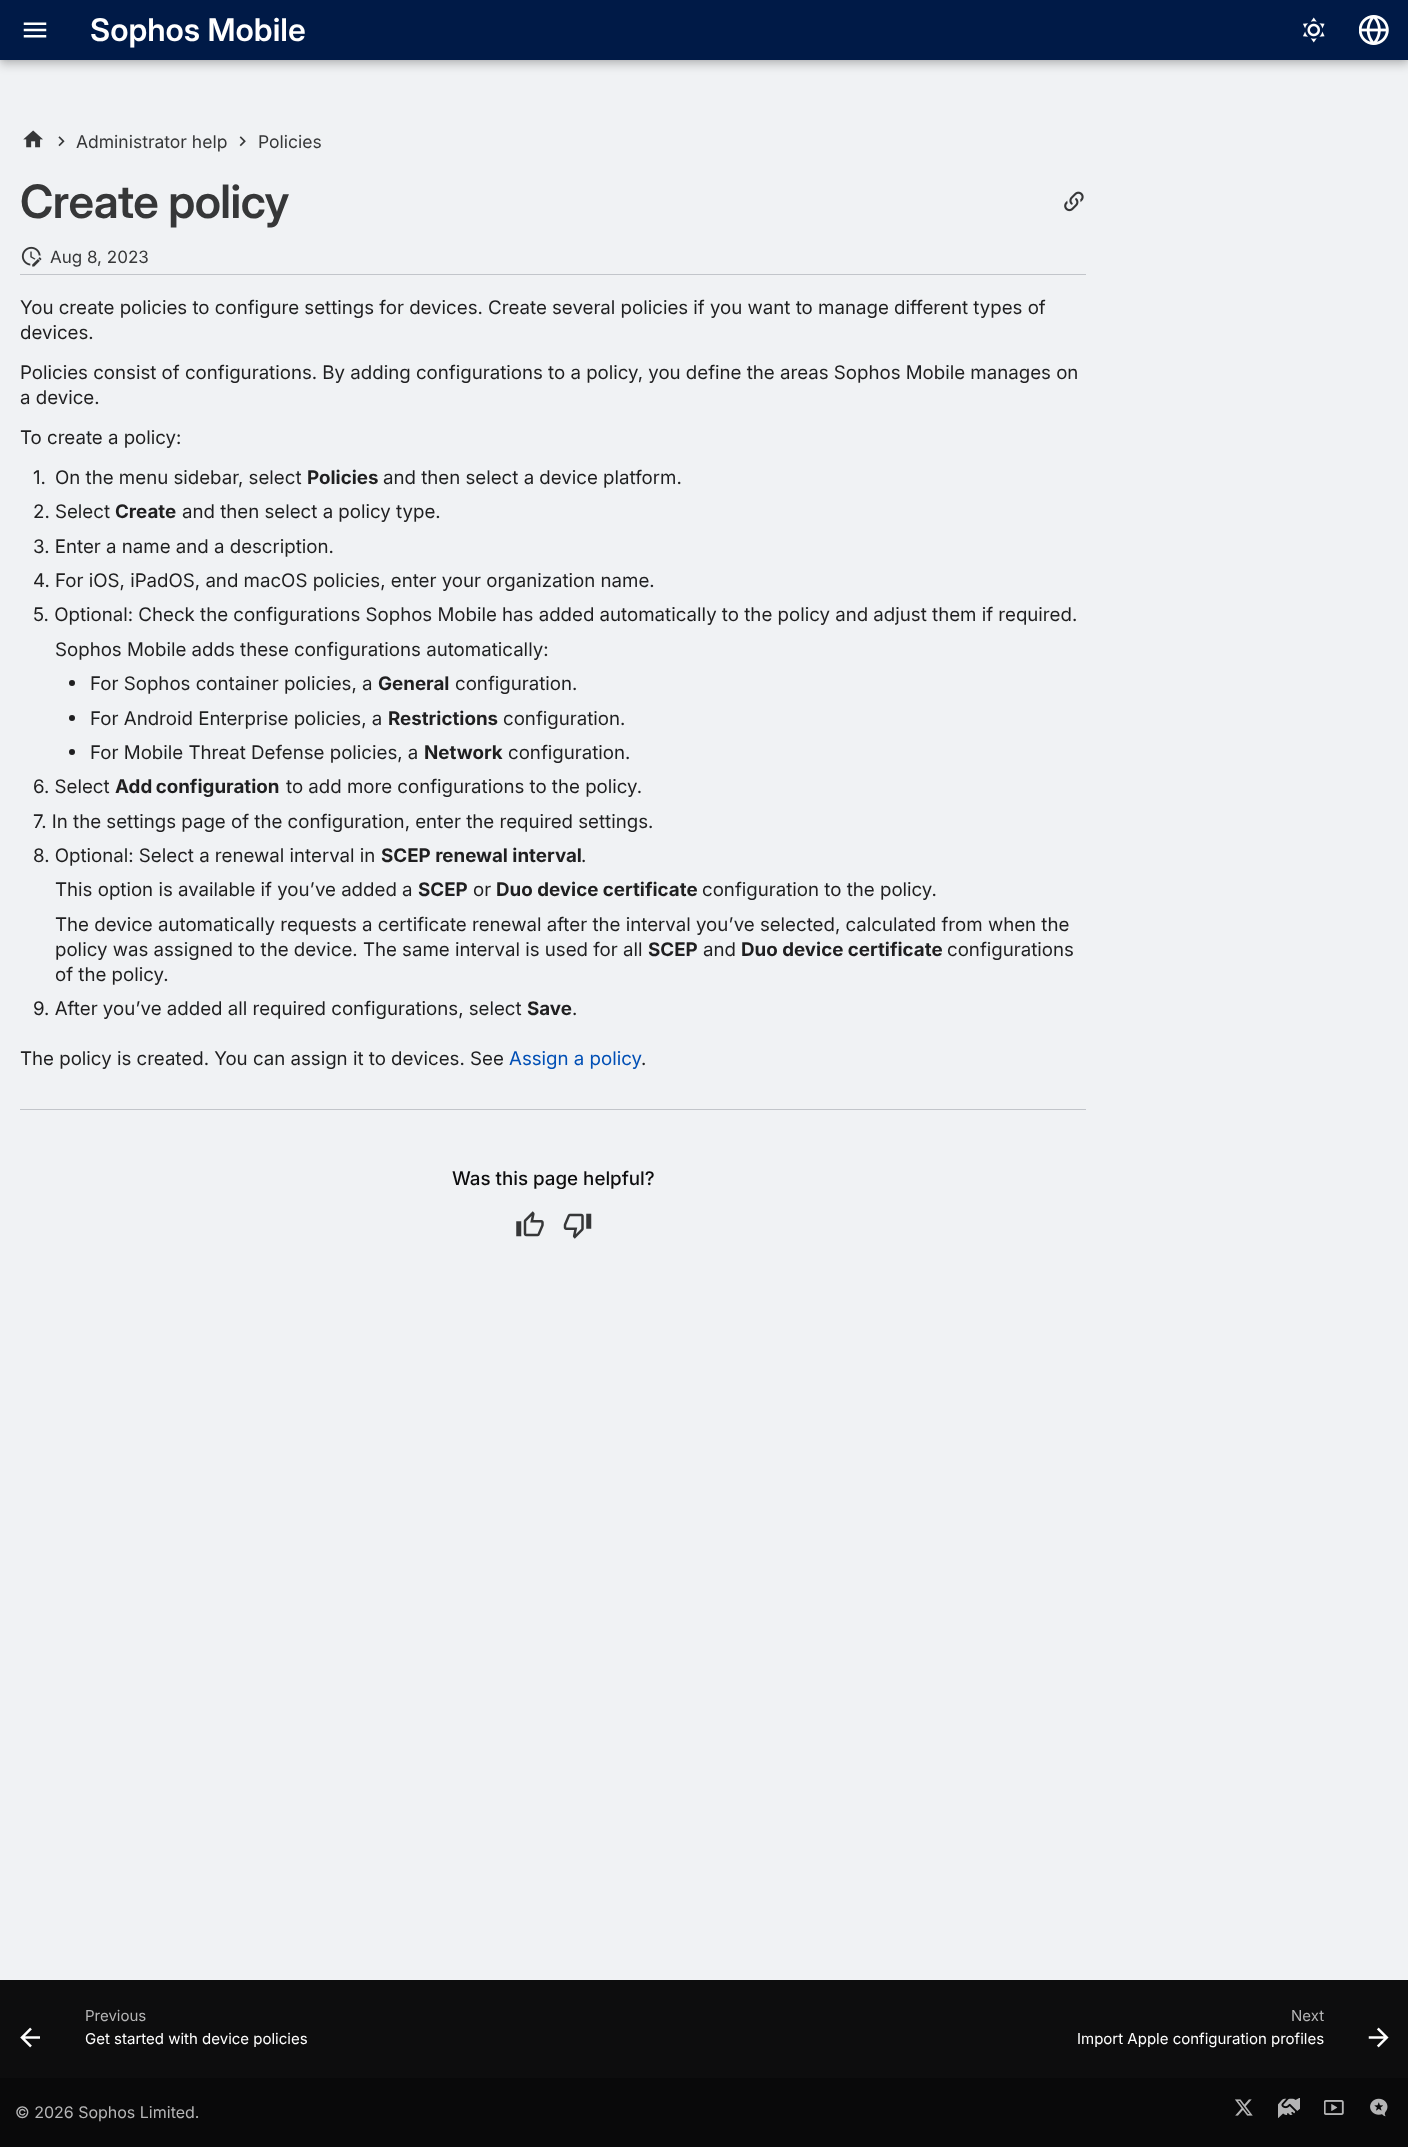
<?xml version="1.0" encoding="UTF-8"?>
<svg xmlns="http://www.w3.org/2000/svg" width="1408" height="2147">
    <defs>
        <filter id="blur1" x="-50%" y="-200%" width="200%" height="500%"><feGaussianBlur stdDeviation="5"/></filter>
        <filter id="blur2" x="-50%" y="-200%" width="200%" height="500%"><feGaussianBlur stdDeviation="2.5"/></filter>
    </defs>
    <rect width="100%" height="100%" fill="#F0F2F4"/>
    <rect x="0" y="5" width="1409" height="60" fill="#000000" fill-opacity="0.2" filter="url(#blur1)"/>
    <rect x="0" y="0" width="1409" height="60" fill="#000000" fill-opacity="0.1" filter="url(#blur2)"/>
    <rect x="0" y="0" width="1408" height="60" fill="#001A47"/>
    <image x="23" y="22" width="24" height="16" href="img_01.png"/>
    <text x="90" y="41" font-family="'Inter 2'" font-size="31.25" font-weight="600" fill="#FFFFFF">Sophos Mobile</text>
    <image x="1303" y="17" width="22" height="26" href="img_02.png"/>
    <image x="1359" y="15" width="30" height="30" href="img_03.png"/>
    <image x="23" y="130" width="20" height="18" href="img_04.png"/>
    <image x="58" y="136" width="7" height="11" href="img_05.png"/>
    <text x="76" y="148" font-family="Inter" font-size="17.5" fill="#363738">Administrator help</text>
    <image x="239" y="136" width="7" height="11" href="img_06.png"/>
    <text x="258" y="148" font-family="Inter" font-size="17.5" fill="#363738">Policies</text>
    <text x="20" y="218" font-family="Inter" font-size="46" font-weight="600" letter-spacing="-0.5" fill="#363738">Create policy</text>
    <image x="1064" y="191" width="20" height="21" href="img_07.png"/>
    <rect x="20" y="274" width="1066" height="1" fill="#C2C5CA"/>
    <image x="21" y="246" width="21" height="21" href="img_08.png"/>
    <text x="50" y="263" font-family="Inter" font-size="17" fill="#363738">Aug 8, 2023</text>
    <text font-family="'Inter 2'" font-size="18.75" fill="#1F1F20">
        <tspan x="20" y="314">You create policies to configure settings for devices. Create several policies if you want to manage different types of</tspan>
        <tspan x="20" y="339">devices.</tspan>
    </text>
    <text font-family="'Inter 2'" font-size="18.75" fill="#1F1F20">
        <tspan x="20" y="379">Policies consist of configurations. By adding configurations to a policy, you define the areas Sophos Mobile manages on</tspan>
        <tspan x="20" y="404">a device.</tspan>
    </text>
    <text x="20" y="444" font-family="'Inter 2'" font-size="18.75" fill="#1F1F20">To create a policy:</text>
    <text x="33" y="484" font-family="'Inter 2'" font-size="18.75" fill="#1F1F20">1.</text>
    <text x="55" y="484" font-family="'Inter 2'" font-size="18.75" fill="#1F1F20">On the menu sidebar, select</text>
    <text x="307" y="484" font-family="Inter" font-size="18.75" font-weight="700" fill="#1F1F20">Policies</text>
    <text x="383" y="484" font-family="'Inter 2'" font-size="18.75" fill="#1F1F20">and then select a device platform.</text>
    <text x="33" y="518" font-family="'Inter 2'" font-size="18.75" fill="#1F1F20">2. Select</text>
    <text x="115" y="518" font-family="Inter" font-size="18.75" font-weight="700" fill="#1F1F20">Create</text>
    <text x="182" y="518" font-family="'Inter 2'" font-size="18.75" fill="#1F1F20">and then select a policy type.</text>
    <text font-family="'Inter 2'" font-size="18.75" fill="#1F1F20">
        <tspan x="33" y="553">3. Enter a name and a description.</tspan>
        <tspan x="33" y="587">4. For iOS, iPadOS, and macOS policies, enter your organization name.</tspan>
        <tspan x="33" y="621">5. Optional: Check the configurations Sophos Mobile has added automatically to the policy and adjust them if required.</tspan>
    </text>
    <text x="55" y="656" font-family="'Inter 2'" font-size="18.75" fill="#1F1F20">Sophos Mobile adds these configurations automatically:</text>
    <circle cx="72" cy="683" r="3" fill="#1F1F20"/>
    <text x="90" y="690" font-family="'Inter 2'" font-size="18.75" fill="#1F1F20">For Sophos container policies, a</text>
    <text x="378" y="690" font-family="Inter" font-size="18.75" font-weight="700" fill="#1F1F20">General</text>
    <text x="455" y="690" font-family="'Inter 2'" font-size="18.75" fill="#1F1F20">configuration.</text>
    <circle cx="72" cy="718" r="3" fill="#1F1F20"/>
    <text x="90" y="725" font-family="'Inter 2'" font-size="18.75" fill="#1F1F20">For Android Enterprise policies, a</text>
    <text x="388" y="725" font-family="Inter" font-size="18.75" font-weight="700" fill="#1F1F20">Restrictions</text>
    <text x="503" y="725" font-family="'Inter 2'" font-size="18.75" fill="#1F1F20">configuration.</text>
    <circle cx="72" cy="752" r="3" fill="#1F1F20"/>
    <text x="90" y="759" font-family="'Inter 2'" font-size="18.75" fill="#1F1F20">For Mobile Threat Defense policies, a</text>
    <text x="424" y="759" font-family="Inter" font-size="18.75" font-weight="700" fill="#1F1F20">Network</text>
    <text x="508" y="759" font-family="'Inter 2'" font-size="18.75" fill="#1F1F20">configuration.</text>
    <text x="33" y="793" font-family="'Inter 2'" font-size="18.75" fill="#1F1F20">6. Select</text>
    <text x="115" y="793" word-spacing="-1" font-family="Inter" font-size="18.75" font-weight="700" fill="#1F1F20">Add configuration</text>
    <text x="286" y="793" font-family="'Inter 2'" font-size="18.75" fill="#1F1F20">to add more configurations to the policy.</text>
    <text font-family="'Inter 2'" font-size="18.75" fill="#1F1F20">
        <tspan x="33" y="828">7. In the settings page of the configuration, enter the required settings.</tspan>
        <tspan x="33" y="862">8. Optional: Select a renewal interval in</tspan>
    </text>
    <text x="381" y="862" font-family="Inter" font-size="18.75" font-weight="700" fill="#1F1F20">SCEP renewal interval</text>
    <text x="581" y="862" font-family="'Inter 2'" font-size="18.75" fill="#1F1F20">.</text>
    <text x="55" y="896" font-family="'Inter 2'" font-size="18.75" fill="#1F1F20">This option is available if you’ve added a</text>
    <text x="418" y="896" font-family="Inter" font-size="18.75" font-weight="700" fill="#1F1F20">SCEP</text>
    <text x="473" y="896" font-family="'Inter 2'" font-size="18.75" fill="#1F1F20">or</text>
    <text x="496" y="896" font-family="Inter" font-size="18.75" font-weight="700" fill="#1F1F20">Duo device certificate</text>
    <text x="702" y="896" font-family="'Inter 2'" font-size="18.75" fill="#1F1F20">configuration to the policy.</text>
    <text font-family="'Inter 2'" font-size="18.75" fill="#1F1F20">
        <tspan x="55" y="931">The device automatically requests a certificate renewal after the interval you’ve selected, calculated from when the</tspan>
        <tspan x="55" y="956">policy was assigned to the device. The same interval is used for all</tspan>
    </text>
    <text x="648" y="956" font-family="Inter" font-size="18.75" font-weight="700" fill="#1F1F20">SCEP</text>
    <text x="703" y="956" font-family="'Inter 2'" font-size="18.75" fill="#1F1F20">and</text>
    <text x="741" y="956" font-family="Inter" font-size="18.75" font-weight="700" fill="#1F1F20">Duo device certificate</text>
    <text x="947" y="956" font-family="'Inter 2'" font-size="18.75" fill="#1F1F20">configurations</text>
    <text x="55" y="981" font-family="'Inter 2'" font-size="18.75" fill="#1F1F20">of the policy.</text>
    <text x="33" y="1015" font-family="'Inter 2'" font-size="18.75" fill="#1F1F20">9. After you’ve added all required configurations, select</text>
    <text x="527" y="1015" font-family="Inter" font-size="18.75" font-weight="700" fill="#1F1F20">Save</text>
    <text x="572" y="1015" font-family="'Inter 2'" font-size="18.75" fill="#1F1F20">.</text>
    <text x="20" y="1065" font-family="'Inter 2'" font-size="18.75" fill="#1F1F20">The policy is created. You can assign it to devices. See</text>
    <text x="509" y="1065" font-family="'Inter 2'" font-size="18.75" fill="#004FB5">Assign a policy</text>
    <text x="641" y="1065" font-family="'Inter 2'" font-size="18.75" fill="#1F1F20">.</text>
    <rect x="20" y="1109" width="1066" height="1" fill="#C2C5CA"/>
    <text x="452" y="1185" font-family="Inter" font-size="18.75" font-weight="500" fill="#0D0D0E">Was this page helpful?</text>
    <image x="516" y="1211" width="28" height="26" href="img_09.png"/>
    <image x="563" y="1213" width="29" height="26" href="img_10.png"/>
    <rect x="0" y="1980" width="1408" height="98" fill="#0D0D0E"/>
    <image x="20" y="2027" width="20" height="21" href="img_11.png"/>
    <text x="85" y="2021" font-family="Inter" font-size="15" fill="#B5B5B6">Previous</text>
    <text x="85" y="2044" font-family="Inter" font-size="15" fill="#FFFFFF">Get started with device policies</text>
    <text x="1291" y="2021" font-family="Inter" font-size="15" fill="#B5B5B6">Next</text>
    <text x="1077" y="2044" font-family="Inter" font-size="15" fill="#FFFFFF">Import Apple configuration profiles</text>
    <image x="1368" y="2027" width="21" height="21" href="img_12.png"/>
    <rect x="0" y="2078" width="1408" height="69" fill="#09090A"/>
    <text x="15" y="2118" font-family="Inter" font-size="16" fill="#B5B5B6">© 2026 Sophos Limited.</text>
    <image x="1235" y="2099" width="18" height="17" href="img_13.png"/>
    <image x="1278" y="2098" width="22" height="20" href="img_14.png"/>
    <image x="1324" y="2100" width="20" height="15" href="img_15.png"/>
    <image x="1370" y="2098" width="18" height="19" href="img_16.png"/>
</svg>
